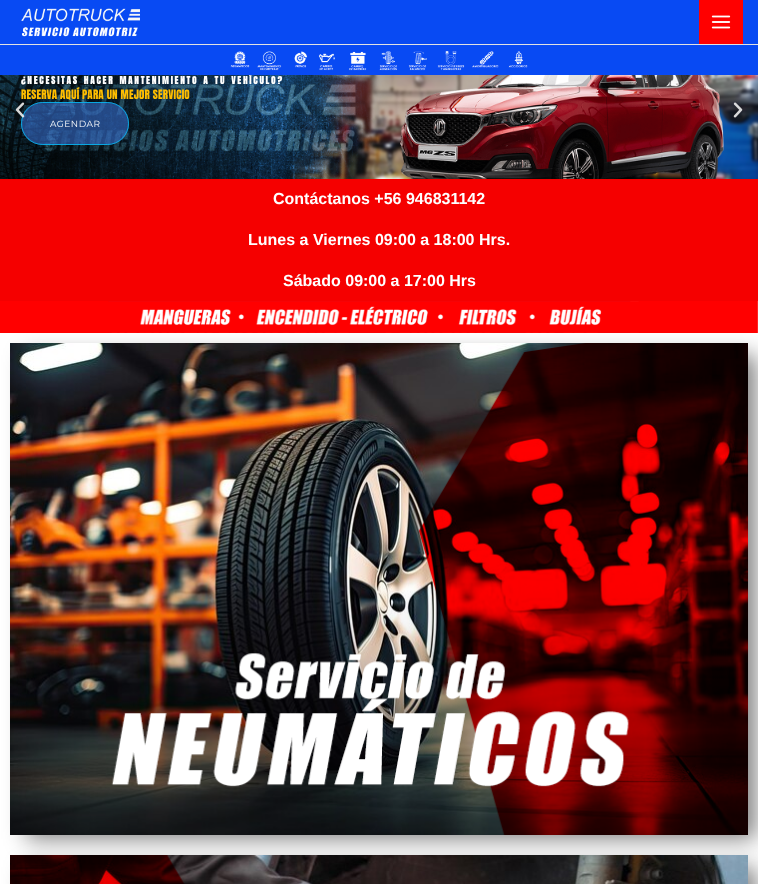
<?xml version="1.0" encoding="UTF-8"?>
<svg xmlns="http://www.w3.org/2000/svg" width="758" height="884">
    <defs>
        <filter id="blur1" x="-50%" y="-200%" width="200%" height="500%"><feGaussianBlur stdDeviation="11"/></filter>
    </defs>
    <rect width="100%" height="100%" fill="#FFFFFF"/>
    <rect x="0" y="0" width="758" height="44" fill="#084AF3"/>
    <rect x="0" y="44" width="758" height="1" fill="#E2E2E2"/>
    <image x="21" y="8" width="119" height="29" href="img_01.png"/>
    <rect x="699" y="0" width="44" height="44" fill="#FF0000"/>
    <image x="711" y="15" width="20" height="14" href="img_02.png"/>
    <image x="0" y="75" width="758" height="104" href="img_05.png"/>
    <text x="21" y="84" word-spacing="1" font-family="Anton" font-size="9" font-weight="700" letter-spacing="1.9" fill="#FFFFFF">¿NECESITAS HACER MANTENIMIENTO A TU VEHÍCULO?</text>
    <rect x="0" y="45" width="758" height="30" fill="#084AF3"/>
    <image x="230" y="51" width="298" height="20" href="img_03.png"/>
    <rect x="21" y="102" width="108" height="43" rx="21.5" fill="#3A72D6" fill-opacity="0.57"/>
    <rect x="21.5" y="102.5" width="107" height="42" rx="21" fill="none" stroke="#00C6FF" stroke-opacity="0.75"/>
    <image x="15" y="102" width="10" height="16" href="img_04.png"/>
    <text x="21" y="99" font-family="Anton" font-size="11" letter-spacing="0.2" fill="#FFBE00">RESERVA AQUÍ PARA UN MEJOR SERVICIO</text>
    <text x="50" y="127" font-family="Montserrat" font-size="9" letter-spacing="0.5" fill="#FFFFFF">AGENDAR</text>
    <image x="733" y="102" width="10" height="16" href="img_06.png"/>
    <rect x="0" y="179" width="758" height="122" fill="#F50000"/>
    <text x="273" y="204" font-family="Liberation Sans" font-size="16" font-weight="700" fill="#FFFFFF">Contáctanos +56 946831142</text>
    <text x="248" y="245" font-family="Liberation Sans" font-size="16" font-weight="700" fill="#FFFFFF">Lunes a Viernes 09:00 a 18:00 Hrs.</text>
    <text x="283" y="286" font-family="Liberation Sans" font-size="16" font-weight="700" fill="#FFFFFF">Sábado 09:00 a 17:00 Hrs</text>
    <rect x="26" y="355" width="730" height="484" fill="#070707" fill-opacity="0.5" filter="url(#blur1)"/>
    <image x="0" y="301" width="758" height="32" href="img_07.png"/>
    <image x="10" y="343" width="738" height="492" href="img_08.png"/>
    <rect x="26" y="867" width="730" height="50" fill="#070707" fill-opacity="0.5" filter="url(#blur1)"/>
    <image x="10" y="855" width="738" height="29" href="img_09.png"/>
</svg>
